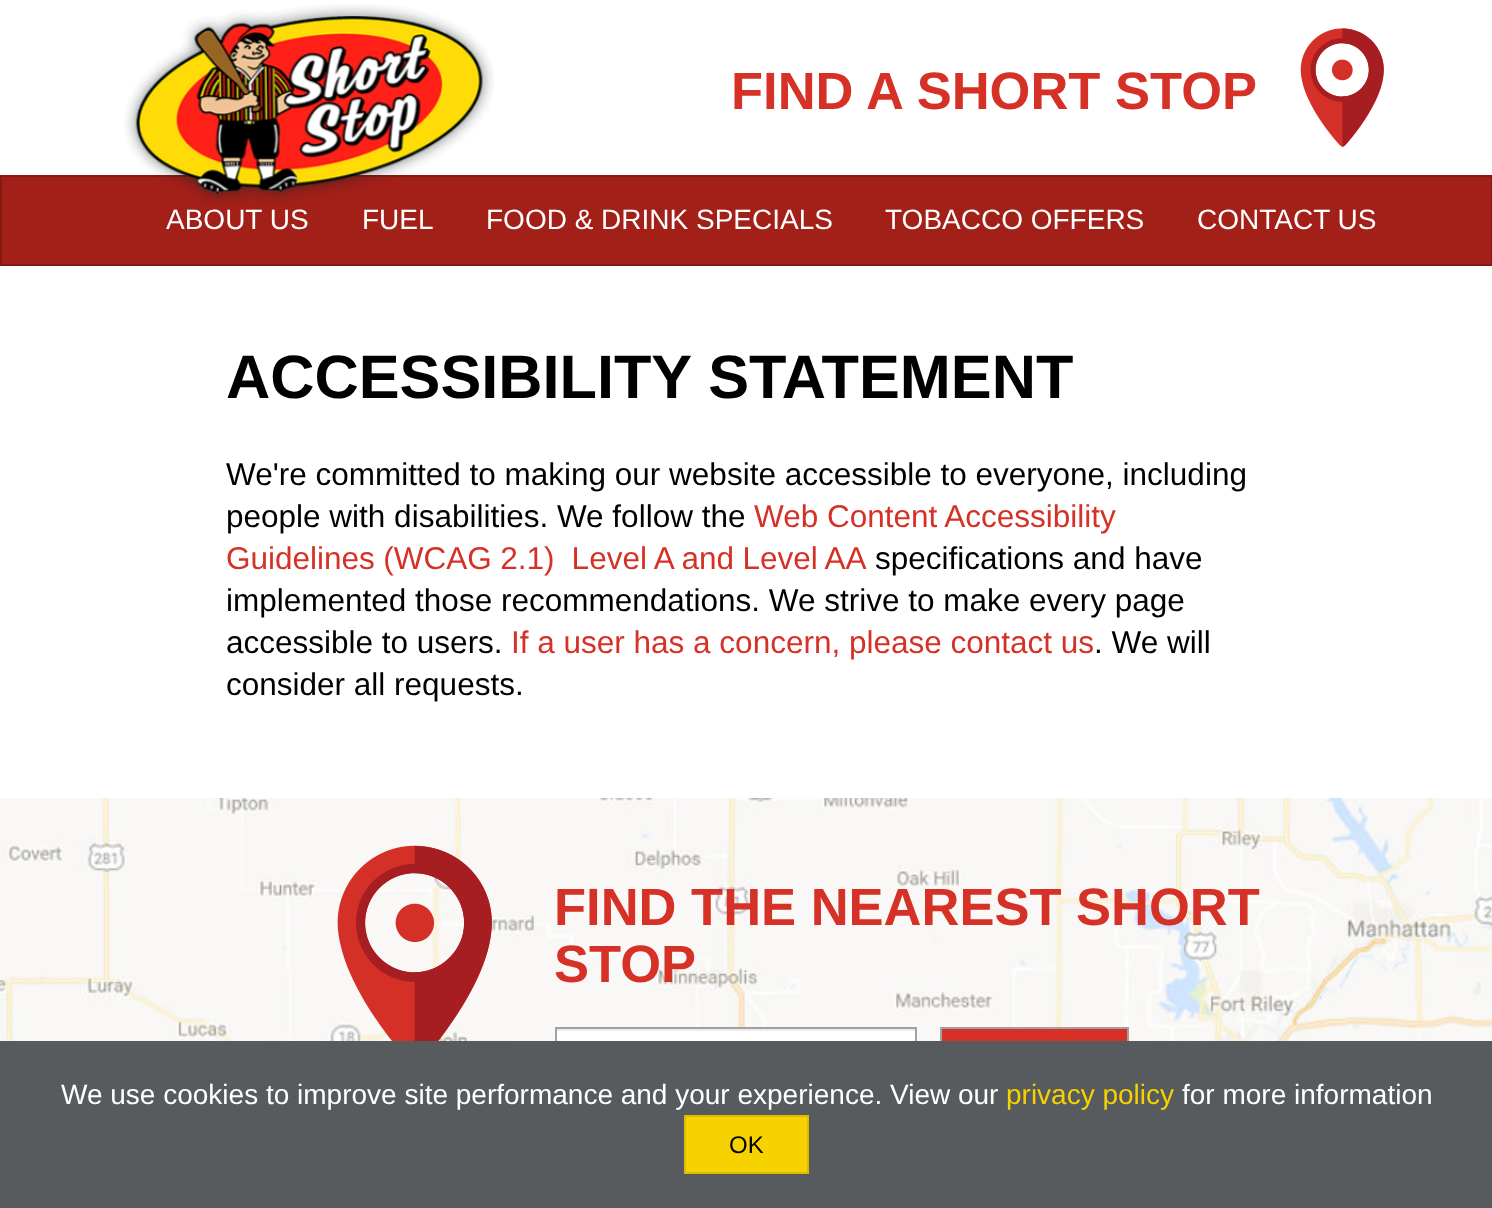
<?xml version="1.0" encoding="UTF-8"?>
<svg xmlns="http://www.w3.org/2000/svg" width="1492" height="1208">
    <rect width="100%" height="100%" fill="#FFFFFF"/>
    <rect x="1" y="176" width="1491" height="89" fill="#A22018" stroke="#851A14" stroke-width="2"/>
    <image x="124" y="4" width="370" height="200" href="img_01.png"/>
    <text x="731" y="109" font-family="Liberation Sans" font-size="52.5" font-weight="700" fill="#D63126">FIND A SHORT STOP</text>
    <image x="1300" y="28" width="84" height="119" href="img_02.png"/>
    <text x="166" y="229" font-family="Liberation Sans" font-size="28" fill="#FFFFFF">ABOUT US</text>
    <text x="362" y="229" font-family="Liberation Sans" font-size="28" fill="#FFFFFF">FUEL</text>
    <text x="486" y="229" font-family="Liberation Sans" font-size="28" fill="#FFFFFF">FOOD &amp; DRINK SPECIALS</text>
    <text x="885" y="229" font-family="Liberation Sans" font-size="28" fill="#FFFFFF">TOBACCO OFFERS</text>
    <text x="1197" y="229" font-family="Liberation Sans" font-size="28" fill="#FFFFFF">CONTACT US</text>
    <text x="226" y="398" font-family="Liberation Sans" font-size="61.25" font-weight="700" fill="#000000">ACCESSIBILITY STATEMENT</text>
    <text font-family="Liberation Sans" font-size="31.5" fill="#000000">
        <tspan x="226" y="485">We're committed to making our website accessible to everyone, including</tspan>
        <tspan x="226" y="527">people with disabilities. We follow the</tspan>
    </text>
    <text x="754" y="527" font-family="Liberation Sans" font-size="31.5" fill="#D63126">Web Content Accessibility</text>
    <text x="226" y="569" word-spacing="-0.25" font-family="Liberation Sans" font-size="31.5" fill="#D63126" xml:space="preserve">Guidelines (WCAG 2.1)  Level A and Level AA</text>
    <text x="875" y="569" font-family="Liberation Sans" font-size="31.5" fill="#000000">specifications and have</text>
    <text font-family="Liberation Sans" font-size="31.5" fill="#000000">
        <tspan x="226" y="611">implemented those recommendations. We strive to make every page</tspan>
        <tspan x="226" y="653">accessible to users.</tspan>
    </text>
    <text x="511" y="653" font-family="Liberation Sans" font-size="31.5" fill="#D63126">If a user has a concern, please contact us</text>
    <text x="1094" y="653" font-family="Liberation Sans" font-size="31.5" fill="#000000">. We will</text>
    <text x="226" y="695" font-family="Liberation Sans" font-size="31.5" fill="#000000">consider all requests.</text>
    <image x="0" y="798" width="1492" height="243" href="img_03.png"/>
    <image x="337" y="845" width="155" height="196" href="img_04.png"/>
    <text font-family="Liberation Sans" font-size="52.5" font-weight="700" fill="#D63126">
        <tspan x="554" y="925">FIND THE NEAREST SHORT</tspan>
        <tspan x="554" y="982">STOP</tspan>
    </text>
    <rect x="557" y="1031" width="358" height="10" fill="#FFFFFF"/>
    <rect x="557" y="1029" width="358" height="2" fill="#ECECEC"/>
    <rect x="556" y="1028" width="360" height="58" fill="none" stroke="#A1A1A1" stroke-width="2"/>
    <rect x="942" y="1029" width="185" height="12" fill="#D63126"/>
    <rect x="941" y="1028" width="187" height="58" fill="none" stroke="#A1A1A1" stroke-width="2"/>
    <rect x="0" y="1041" width="1492" height="167" fill="#575B5D"/>
    <text x="61" y="1104" font-family="Liberation Sans" font-size="28" fill="#FFFFFF">We use cookies to improve site performance and your experience. View our</text>
    <text x="1006" y="1104" font-family="Liberation Sans" font-size="28" fill="#F6D200">privacy policy</text>
    <text x="1182" y="1104" font-family="Liberation Sans" font-size="28" fill="#FFFFFF">for more information</text>
    <rect x="685" y="1116" width="123" height="57" fill="#F6D200" stroke="#DDBC00" stroke-width="2"/>
    <text x="729" y="1153" font-family="Liberation Sans" font-size="24" fill="#000000">OK</text>
</svg>
